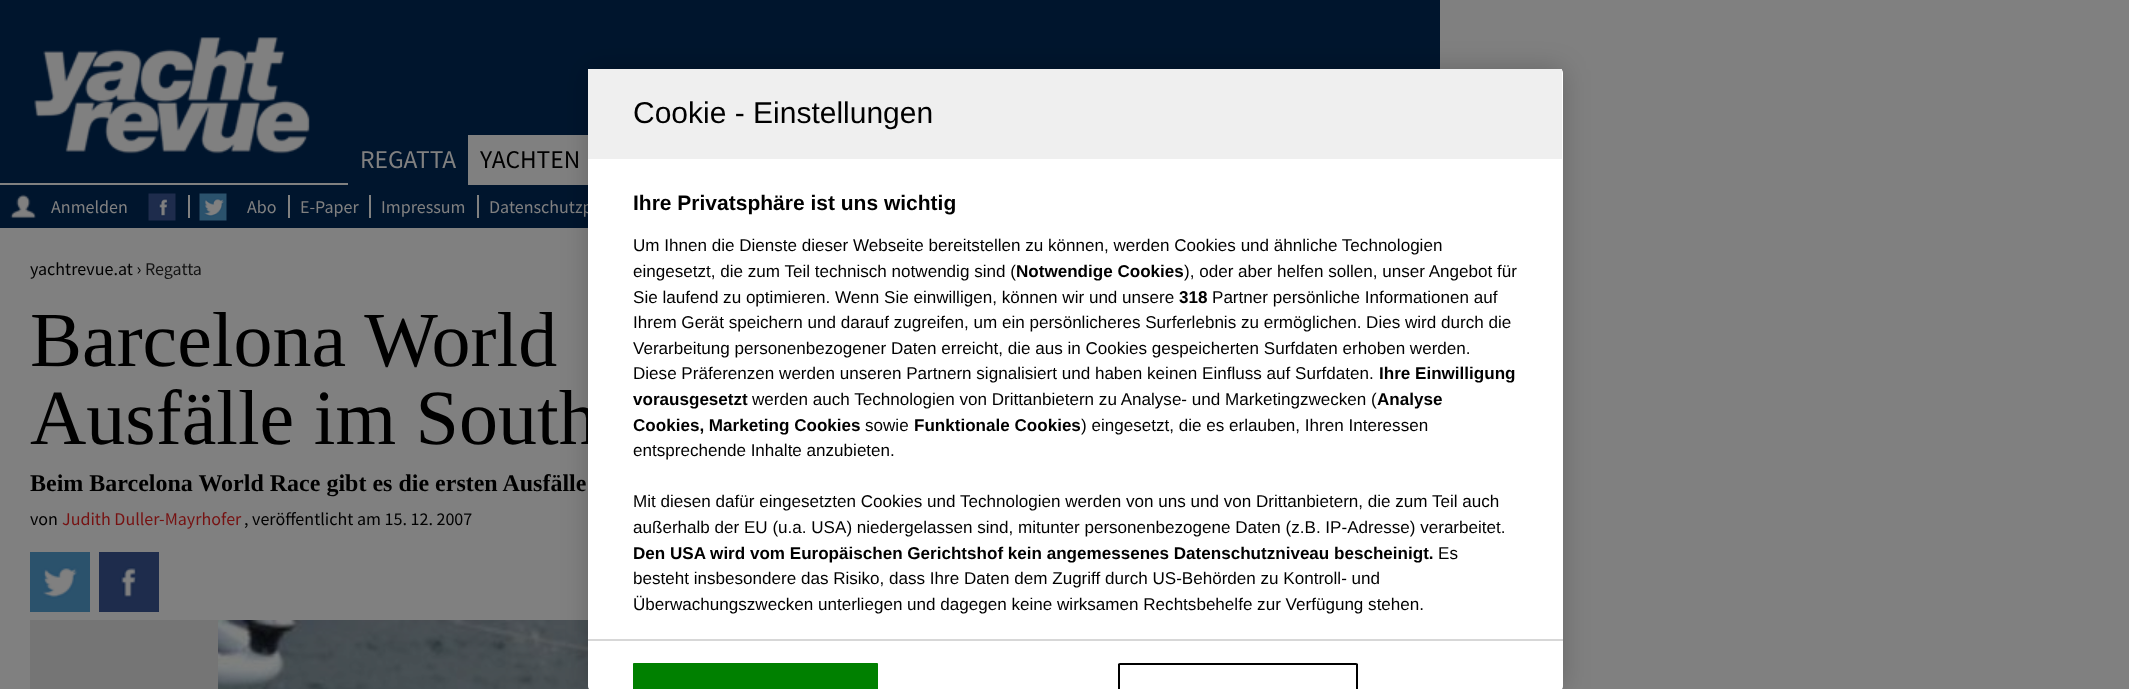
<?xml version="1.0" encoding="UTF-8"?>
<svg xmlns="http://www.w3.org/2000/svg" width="2129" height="689">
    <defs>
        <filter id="blur1" x="-50%" y="-200%" width="200%" height="500%"><feGaussianBlur stdDeviation="13.5"/></filter>
    </defs>
    <rect width="100%" height="100%" fill="#808080"/>
    <rect x="0" y="0" width="1440" height="228" fill="#00152D"/>
    <image x="34" y="37" width="276" height="117" href="img_01.png"/>
    <rect x="468" y="135" width="120" height="48" fill="#808080"/>
    <text x="360" y="168" font-family="Source Sans Pro" font-size="25.5" fill="#808080">REGATTA</text>
    <rect x="0" y="183" width="588" height="2" fill="#808080"/>
    <rect x="348" y="183" width="120" height="2" fill="#00152D"/>
    <text x="480" y="168" font-family="Source Sans Pro" font-size="25.5" fill="#000000">YACHTEN</text>
    <image x="10" y="194" width="26" height="25" href="img_02.png"/>
    <text x="51" y="213" font-family="Source Sans Pro" font-size="18" fill="#808080">Anmelden</text>
    <image x="148" y="193" width="28" height="28" href="img_03.png"/>
    <rect x="188" y="195" width="2" height="23" fill="#808080"/>
    <image x="199" y="193" width="28" height="28" href="img_04.png"/>
    <text x="247" y="213" font-family="Source Sans Pro" font-size="18" fill="#808080">Abo</text>
    <text x="300" y="213" font-family="Source Sans Pro" font-size="18" fill="#808080">E-Paper</text>
    <rect x="288" y="195" width="2" height="23" fill="#808080"/>
    <text x="381" y="213" font-family="Source Sans Pro" font-size="18" fill="#808080">Impressum</text>
    <rect x="369" y="195" width="2" height="23" fill="#808080"/>
    <text x="489" y="213" font-family="Source Sans Pro" font-size="18" fill="#808080">Datenschutzp</text>
    <rect x="477" y="195" width="2" height="23" fill="#808080"/>
    <text x="30" y="275" font-family="Source Sans Pro" font-size="18" fill="#000000">yachtrevue.at ›</text>
    <text x="145" y="275" font-family="Source Sans Pro" font-size="18" fill="#141414">Regatta</text>
    <text font-family="Liberation Serif" font-size="78" fill="#000000">
        <tspan x="30" y="366">Barcelona World</tspan>
        <tspan x="30" y="444">Ausfälle im South</tspan>
    </text>
    <text x="30" y="491" font-family="Liberation Serif" font-size="24" font-weight="700" fill="#000000">Beim Barcelona World Race gibt es die ersten Ausfälle</text>
    <text x="30" y="525" font-family="Source Sans Pro" font-size="18" fill="#000000">von</text>
    <text x="62" y="525" font-family="Source Sans Pro" font-size="18" fill="#761212">Judith Duller-Mayrhofer</text>
    <text x="244" y="525" font-family="Source Sans Pro" font-size="18" fill="#000000">, veröffentlicht am 15. 12. 2007</text>
    <image x="30" y="552" width="60" height="60" href="img_05.png"/>
    <image x="99" y="552" width="60" height="60" href="img_06.png"/>
    <rect x="30" y="620" width="188" height="69" fill="#757575"/>
    <image x="218" y="620" width="372" height="69" href="img_07.png"/>
    <rect x="588" y="69" width="975" height="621" rx="4" fill="#000000" fill-opacity="0.2" filter="url(#blur1)"/>
    <rect x="588" y="69" width="975" height="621" rx="4" fill="#FFFFFF"/>
    <rect x="588" y="69" width="974" height="90" fill="#EFEFEF"/>
    <text x="633" y="123" font-family="Liberation Sans" font-size="30" fill="#000000">Cookie - Einstellungen</text>
    <text x="633" y="210" font-family="Liberation Sans" font-size="21" font-weight="700" fill="#000000">Ihre Privatsphäre ist uns wichtig</text>
    <text font-family="Liberation Sans" font-size="17.07" fill="#000000">
        <tspan x="633" y="251">Um Ihnen die Dienste dieser Webseite bereitstellen zu können, werden Cookies und ähnliche Technologien</tspan>
        <tspan x="633" y="277">eingesetzt, die zum Teil technisch notwendig sind (</tspan>
    </text>
    <text x="1016" y="277" font-family="Liberation Sans" font-size="17.07" font-weight="700" fill="#000000">Notwendige Cookies</text>
    <text x="1184" y="277" font-family="Liberation Sans" font-size="17.07" fill="#000000">), oder aber helfen sollen, unser Angebot für</text>
    <text x="633" y="303" font-family="Liberation Sans" font-size="17.07" fill="#000000">Sie laufend zu optimieren. Wenn Sie einwilligen, können wir und unsere</text>
    <text x="1179" y="303" font-family="Liberation Sans" font-size="17.07" font-weight="700" fill="#000000">318</text>
    <text x="1212" y="303" font-family="Liberation Sans" font-size="17.07" fill="#000000">Partner persönliche Informationen auf</text>
    <text font-family="Liberation Sans" font-size="17.07" fill="#000000">
        <tspan x="633" y="328">Ihrem Gerät speichern und darauf zugreifen, um ein persönlicheres Surferlebnis zu ermöglichen. Dies wird durch die</tspan>
        <tspan x="633" y="354">Verarbeitung personenbezogener Daten erreicht, die aus in Cookies gespeicherten Surfdaten erhoben werden.</tspan>
        <tspan x="633" y="379">Diese Präferenzen werden unseren Partnern signalisiert und haben keinen Einfluss auf Surfdaten.</tspan>
    </text>
    <text x="1379" y="379" font-family="Liberation Sans" font-size="17.07" font-weight="700" fill="#000000">Ihre Einwilligung</text>
    <text x="633" y="405" font-family="Liberation Sans" font-size="17.07" font-weight="700" fill="#000000">vorausgesetzt</text>
    <text x="752" y="405" font-family="Liberation Sans" font-size="17.07" fill="#000000">werden auch Technologien von Drittanbietern zu Analyse- und Marketingzwecken (</text>
    <text x="1377" y="405" font-family="Liberation Sans" font-size="17.07" font-weight="700" fill="#000000">Analyse</text>
    <text x="633" y="431" font-family="Liberation Sans" font-size="17.07" font-weight="700" fill="#000000">Cookies, Marketing Cookies</text>
    <text x="865" y="431" font-family="Liberation Sans" font-size="17.07" fill="#000000">sowie</text>
    <text x="914" y="431" font-family="Liberation Sans" font-size="17.07" font-weight="700" fill="#000000">Funktionale Cookies</text>
    <text x="1081" y="431" font-family="Liberation Sans" font-size="17.07" fill="#000000">) eingesetzt, die es erlauben, Ihren Interessen</text>
    <text x="633" y="456" font-family="Liberation Sans" font-size="17.07" fill="#000000">entsprechende Inhalte anzubieten.</text>
    <text font-family="Liberation Sans" font-size="17.07" fill="#000000">
        <tspan x="633" y="507">Mit diesen dafür eingesetzten Cookies und Technologien werden von uns und von Drittanbietern, die zum Teil auch</tspan>
        <tspan x="633" y="533">außerhalb der EU (u.a. USA) niedergelassen sind, mitunter personenbezogene Daten (z.B. IP-Adresse) verarbeitet.</tspan>
    </text>
    <text x="633" y="559" font-family="Liberation Sans" font-size="17.07" font-weight="700" fill="#000000">Den USA wird vom Europäischen Gerichtshof kein angemessenes Datenschutzniveau bescheinigt.</text>
    <text x="1438" y="559" font-family="Liberation Sans" font-size="17.07" fill="#000000">Es</text>
    <text font-family="Liberation Sans" font-size="17.07" fill="#000000">
        <tspan x="633" y="584">besteht insbesondere das Risiko, dass Ihre Daten dem Zugriff durch US-Behörden zu Kontroll- und</tspan>
        <tspan x="633" y="610">Überwachungszwecken unterliegen und dagegen keine wirksamen Rechtsbehelfe zur Verfügung stehen.</tspan>
    </text>
    <rect x="588" y="639" width="975" height="2" fill="#D7D7D7"/>
    <path d="M 634.5 663 H 876.5 C 877.5 663 878 663.5 878 664.5 V 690 H 633 V 664.5 C 633 663.5 633.5 663 634.5 663 Z" fill="#008000"/>
    <path d="M 634 663 C 634 663 633 664 633 664 V 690 H 635 V 665 H 876 V 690 H 878 V 664 C 878 664 877 663 876 663 Z" fill="#008000"/>
    <path d="M 1120 663 C 1119 663 1118 664 1118 664 V 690 H 1120 V 665 H 1356 V 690 H 1358 V 664 C 1358 664 1357 663 1356 663 Z" fill="#000000"/>
</svg>
